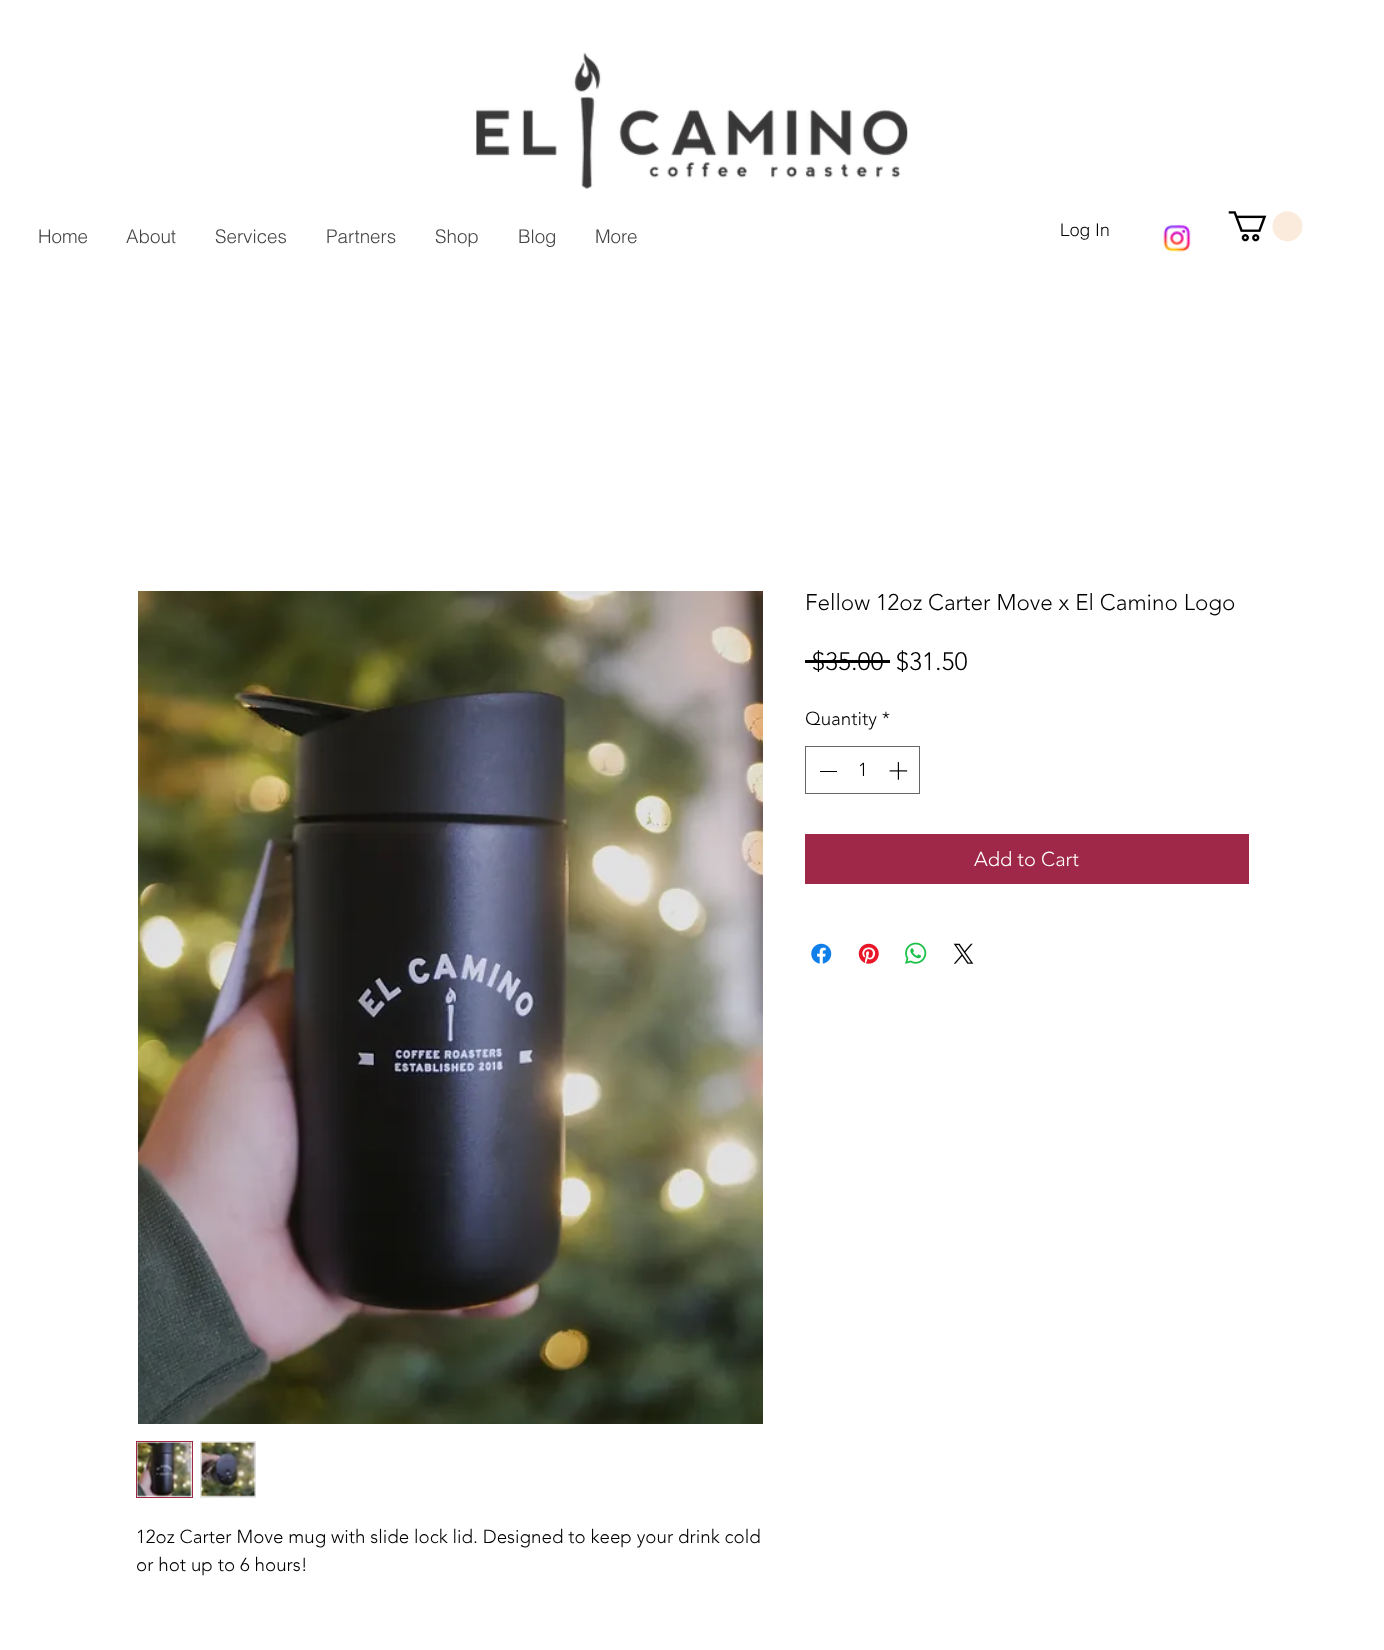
<?xml version="1.0" encoding="UTF-8"?>
<svg xmlns="http://www.w3.org/2000/svg" width="1384" height="1650">
    <rect width="100%" height="100%" fill="#FFFFFF"/>
    <image x="476" y="52" width="432" height="137" href="img_01.png"/>
    <text x="38" y="243" font-family="helvetica" font-size="18.75" font-weight="300" fill="#444444">Home</text>
    <text x="126" y="243" font-family="helvetica" font-size="18.75" font-weight="300" fill="#444444">About</text>
    <text x="215" y="243" font-family="helvetica" font-size="18.75" font-weight="300" fill="#444444">Services</text>
    <text x="326" y="243" font-family="helvetica" font-size="18.75" font-weight="300" fill="#444444">Partners</text>
    <text x="435" y="243" font-family="helvetica" font-size="18.75" font-weight="300" fill="#444444">Shop</text>
    <text x="518" y="243" font-family="helvetica" font-size="18.75" font-weight="300" fill="#444444">Blog</text>
    <text x="595" y="243" font-family="helvetica" font-size="18.75" font-weight="300" fill="#444444">More</text>
    <text x="1060" y="236" font-family="helvetica" font-size="17.5" font-weight="300" fill="#000000">Log In</text>
    <image x="1163" y="224" width="28" height="28" href="img_02.png"/>
    <image x="1228" y="211" width="75" height="31" href="img_03.png"/>
    <text x="805" y="610" font-family="'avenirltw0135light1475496'" font-size="22.5" font-weight="300" fill="#000000">Fellow 12oz Carter Move x El Camino Logo</text>
    <text x="812" y="670" font-family="'avenirltw0135light1475496'" font-size="25" font-weight="300" fill="#000000">$35.00</text>
    <rect x="805" y="660" width="85" height="3" fill="#000000"/>
    <text x="896" y="670" font-family="'avenirltw0135light1475496'" font-size="25" font-weight="300" fill="#000000">$31.50</text>
    <text x="805" y="725" font-family="'avenirltw0135light1475496'" font-size="18.75" font-weight="300" fill="#000000">Quantity *</text>
    <rect x="805.5" y="746.5" width="114" height="47" fill="none" stroke="#666666"/>
    <rect x="820" y="771" width="17" height="1" fill="#000000"/>
    <text x="858" y="776" font-family="'avenirltw0135light1475496'" font-size="18.75" font-weight="300" fill="#000000">1</text>
    <image x="889" y="762" width="19" height="18" href="img_04.png"/>
    <rect x="805" y="834" width="444" height="50" fill="#9F2747"/>
    <text x="974" y="866" font-family="'avenirltw0135light1475496'" font-size="20" font-weight="300" fill="#FFFFFF">Add to Cart</text>
    <image x="811" y="943" width="21" height="21" href="img_05.png"/>
    <image x="858" y="943" width="21" height="21" href="img_06.png"/>
    <image x="905" y="942" width="22" height="22" href="img_07.png"/>
    <image x="953" y="943" width="21" height="21" href="img_08.png"/>
    <image x="138" y="591" width="625" height="833" href="img_09.png"/>
    <rect x="136.5" y="1441.5" width="56" height="56" fill="none" stroke="#9F2747"/>
    <image x="137" y="1442" width="55" height="55" href="img_10.png"/>
    <rect x="200.5" y="1441.5" width="55" height="56" fill="none" stroke="#E8E6E6"/>
    <image x="200" y="1442" width="56" height="55" href="img_11.png"/>
    <text font-family="'avenirltw0135light1475496'" font-size="18.75" font-weight="300" fill="#000000">
        <tspan x="136" y="1543">12oz Carter Move mug with slide lock lid. Designed to keep your drink cold</tspan>
        <tspan x="136" y="1571">or hot up to 6 hours!</tspan>
    </text>
</svg>
